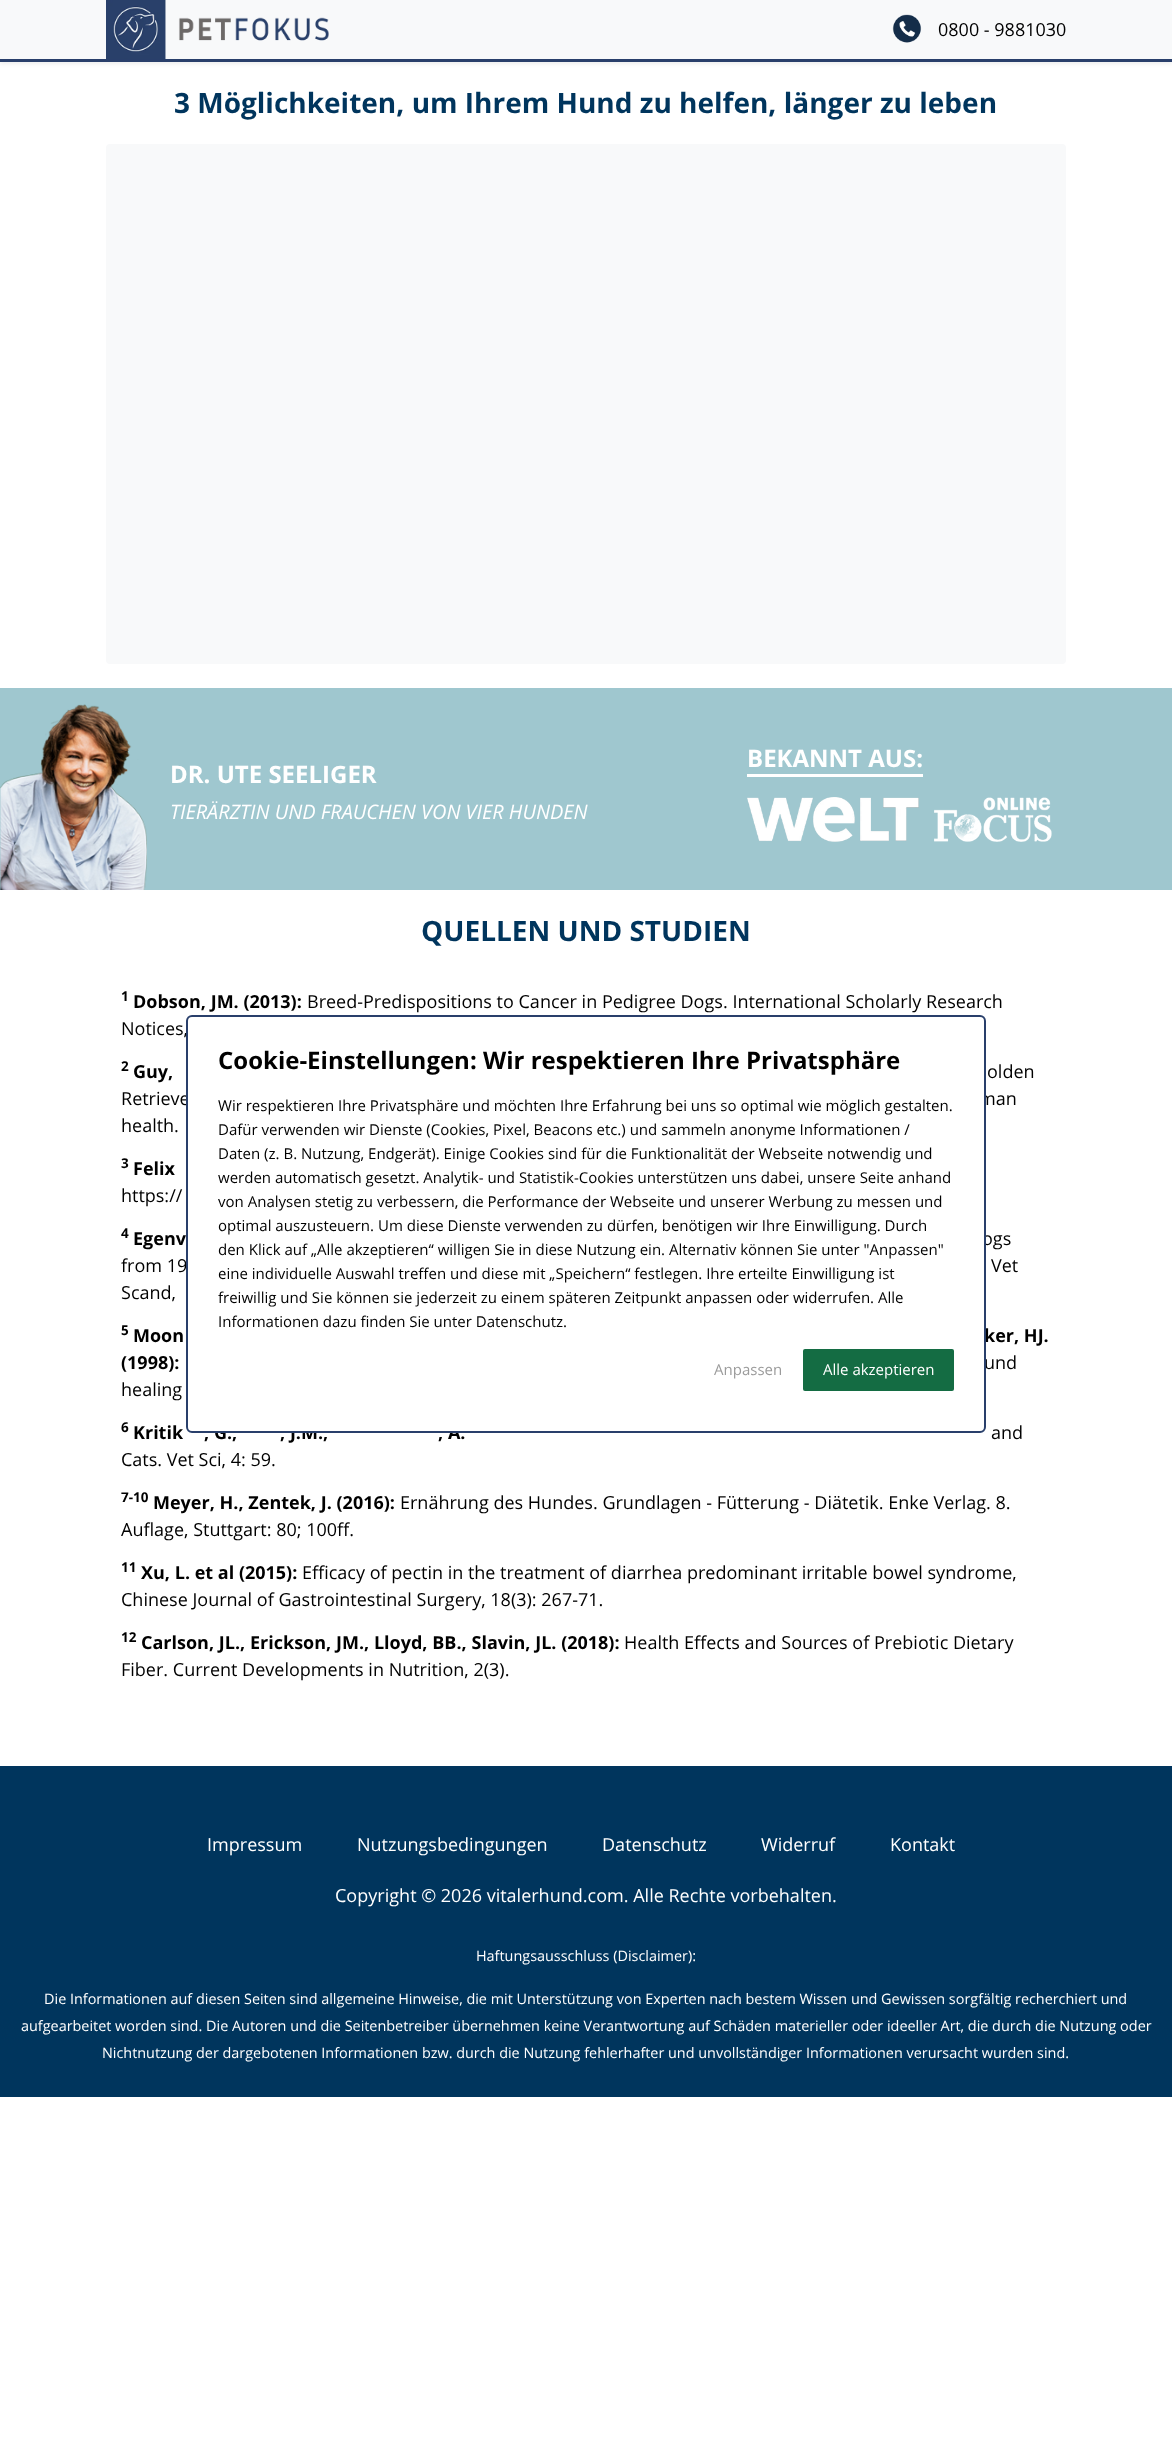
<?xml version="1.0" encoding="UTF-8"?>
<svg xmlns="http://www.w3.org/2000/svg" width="1172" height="2447">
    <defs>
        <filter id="blur1" x="-50%" y="-200%" width="200%" height="500%"><feGaussianBlur stdDeviation="2"/></filter>
    </defs>
    <rect width="100%" height="100%" fill="#FFFFFF"/>
    <rect x="0" y="2" width="1172" height="62" fill="#000000" fill-opacity="0.07" filter="url(#blur1)"/>
    <rect x="0" y="0" width="1172" height="59" fill="#F8F9FA"/>
    <rect x="0" y="59" width="1172" height="3" fill="#293F6B"/>
    <image x="106" y="0" width="223" height="59" href="img_01.png"/>
    <image x="892" y="14" width="30" height="29" href="img_02.png"/>
    <text x="938" y="36" font-family="Open Sans" font-size="18" fill="#000000">0800 - 9881030</text>
    <text x="174" y="113" font-family="Open Sans" font-size="28" font-weight="700" fill="#00355D">3 Möglichkeiten, um Ihrem Hund zu helfen, länger zu leben</text>
    <rect x="106" y="144" width="960" height="520" rx="4" fill="#F8F9FA"/>
    <rect x="0" y="688" width="1172" height="202" fill="#9FC7CF"/>
    <text x="747" y="767" font-family="Open Sans" font-size="24" font-weight="700" fill="#FFFFFF">BEKANNT AUS:</text>
    <rect x="747" y="774" width="176" height="3" fill="#FFFFFF"/>
    <image x="747" y="797" width="305" height="45" href="img_03.png"/>
    <image x="0" y="704" width="147" height="186" href="img_04.png"/>
    <text x="170" y="783" font-family="Open Sans" font-size="24" font-weight="700" fill="#FFFFFF">DR. UTE SEELIGER</text>
    <text x="170" y="819" font-family="Open Sans" font-size="20" font-style="italic" fill="#FFFFFF">TIERÄRZTIN UND FRAUCHEN VON VIER HUNDEN</text>
    <text x="421" y="941" font-family="Open Sans" font-size="28" font-weight="700" fill="#00355D">QUELLEN UND STUDIEN</text>
    <text x="121" y="1001" font-family="Open Sans" font-size="13.5" font-weight="700" fill="#000000">1</text>
    <text x="133" y="1008" font-family="Open Sans" font-size="18" font-weight="700" fill="#000000">Dobson, JM. (2013):</text>
    <text x="307" y="1008" font-family="Open Sans" font-size="18" fill="#000000">Breed-Predispositions to Cancer in Pedigree Dogs. International Scholarly Research</text>
    <text x="121" y="1035" font-family="Open Sans" font-size="18" fill="#000000">Notices,</text>
    <text x="121" y="1071" font-family="Open Sans" font-size="13.5" font-weight="700" fill="#000000">2</text>
    <text x="133" y="1078" font-family="Open Sans" font-size="18" font-weight="700" fill="#000000">Guy,</text>
    <text x="987" y="1078" font-family="Open Sans" font-size="18" fill="#000000">olden</text>
    <text x="121" y="1105" font-family="Open Sans" font-size="18" fill="#000000">Retrieve</text>
    <text x="979" y="1105" font-family="Open Sans" font-size="18" fill="#000000">man</text>
    <text x="121" y="1132" font-family="Open Sans" font-size="18" fill="#000000">health.</text>
    <text x="121" y="1168" font-family="Open Sans" font-size="13.5" font-weight="700" fill="#000000">3</text>
    <text x="133" y="1175" font-family="Open Sans" font-size="18" font-weight="700" fill="#000000">Felix</text>
    <text x="121" y="1202" font-family="Open Sans" font-size="18" fill="#000000">https://</text>
    <text x="121" y="1238" font-family="Open Sans" font-size="13.5" font-weight="700" fill="#000000">4</text>
    <text x="133" y="1245" font-family="Open Sans" font-size="18" font-weight="700" fill="#000000">Egenv</text>
    <text x="982" y="1245" font-family="Open Sans" font-size="18" fill="#000000">ogs</text>
    <text x="121" y="1272" font-family="Open Sans" font-size="18" fill="#000000">from 19</text>
    <text x="991" y="1272" font-family="Open Sans" font-size="18" fill="#000000">Vet</text>
    <text x="121" y="1299" font-family="Open Sans" font-size="18" fill="#000000">Scand,</text>
    <text x="121" y="1335" font-family="Open Sans" font-size="13.5" font-weight="700" fill="#000000">5</text>
    <text x="133" y="1342" font-family="Open Sans" font-size="18" font-weight="700" fill="#000000">Moon</text>
    <text x="984" y="1342" font-family="Open Sans" font-size="18" font-weight="700" fill="#000000">ker, HJ.</text>
    <text x="121" y="1369" font-family="Open Sans" font-size="18" font-weight="700" fill="#000000">(1998):</text>
    <text x="984" y="1369" font-family="Open Sans" font-size="18" fill="#000000">und</text>
    <text x="121" y="1396" font-family="Open Sans" font-size="18" fill="#000000">healing</text>
    <text x="121" y="1432" font-family="Open Sans" font-size="13.5" font-weight="700" fill="#000000">6</text>
    <text x="133" y="1439" font-family="Open Sans" font-size="18" font-weight="700" fill="#000000">Kritik</text>
    <text x="204" y="1439" font-family="Open Sans" font-size="18" font-weight="700" fill="#000000">, G.,</text>
    <text x="280" y="1439" font-family="Open Sans" font-size="18" font-weight="700" fill="#000000">, J.M.,</text>
    <text x="438" y="1439" font-family="Open Sans" font-size="18" font-weight="700" fill="#000000">, A.</text>
    <text x="991" y="1439" font-family="Open Sans" font-size="18" fill="#000000">and</text>
    <text x="121" y="1466" font-family="Open Sans" font-size="18" fill="#000000">Cats. Vet Sci, 4: 59.</text>
    <text x="121" y="1502" font-family="Open Sans" font-size="13.5" font-weight="700" fill="#000000">7-10</text>
    <text x="153" y="1509" font-family="Open Sans" font-size="18" font-weight="700" fill="#000000">Meyer, H., Zentek, J. (2016):</text>
    <text x="400" y="1509" font-family="Open Sans" font-size="18" fill="#000000">Ernährung des Hundes. Grundlagen - Fütterung - Diätetik. Enke Verlag. 8.</text>
    <text x="121" y="1536" font-family="Open Sans" font-size="18" fill="#000000">Auflage, Stuttgart: 80; 100ff.</text>
    <text x="121" y="1572" font-family="Open Sans" font-size="13.5" font-weight="700" fill="#000000">11</text>
    <text x="141" y="1579" font-family="Open Sans" font-size="18" font-weight="700" fill="#000000">Xu, L. et al (2015):</text>
    <text x="302" y="1579" font-family="Open Sans" font-size="18" fill="#000000">Efficacy of pectin in the treatment of diarrhea predominant irritable bowel syndrome,</text>
    <text x="121" y="1606" font-family="Open Sans" font-size="18" fill="#000000">Chinese Journal of Gastrointestinal Surgery, 18(3): 267-71.</text>
    <text x="121" y="1642" font-family="Open Sans" font-size="13.5" font-weight="700" fill="#000000">12</text>
    <text x="141" y="1649" font-family="Open Sans" font-size="18" font-weight="700" fill="#000000">Carlson, JL., Erickson, JM., Lloyd, BB., Slavin, JL. (2018):</text>
    <text x="624" y="1649" font-family="Open Sans" font-size="18" fill="#000000">Health Effects and Sources of Prebiotic Dietary</text>
    <text x="121" y="1676" font-family="Open Sans" font-size="18" fill="#000000">Fiber. Current Developments in Nutrition, 2(3).</text>
    <rect x="187" y="1016" width="798" height="416" rx="5" fill="#FFFFFF" stroke="#293F6B" stroke-width="2"/>
    <text x="218" y="1069" font-family="Open Sans" font-size="24" font-weight="700" fill="#000000">Cookie-Einstellungen: Wir respektieren Ihre Privatsphäre</text>
    <text font-family="Open Sans" font-size="15" fill="#000000">
        <tspan x="218" y="1111">Wir respektieren Ihre Privatsphäre und möchten Ihre Erfahrung bei uns so optimal wie möglich gestalten.</tspan>
        <tspan x="218" y="1135">Dafür verwenden wir Dienste (Cookies, Pixel, Beacons etc.) und sammeln anonyme Informationen /</tspan>
        <tspan x="218" y="1159">Daten (z. B. Nutzung, Endgerät). Einige Cookies sind für die Funktionalität der Webseite notwendig und</tspan>
        <tspan x="218" y="1183">werden automatisch gesetzt. Analytik- und Statistik-Cookies unterstützen uns dabei, unsere Seite anhand</tspan>
        <tspan x="218" y="1207">von Analysen stetig zu verbessern, die Performance der Webseite und unserer Werbung zu messen und</tspan>
        <tspan x="218" y="1231">optimal auszusteuern. Um diese Dienste verwenden zu dürfen, benötigen wir Ihre Einwilligung. Durch</tspan>
        <tspan x="218" y="1255">den Klick auf „Alle akzeptieren“ willigen Sie in diese Nutzung ein. Alternativ können Sie unter "Anpassen"</tspan>
        <tspan x="218" y="1279">eine individuelle Auswahl treffen und diese mit „Speichern“ festlegen. Ihre erteilte Einwilligung ist</tspan>
        <tspan x="218" y="1303">freiwillig und Sie können sie jederzeit zu einem späteren Zeitpunkt anpassen oder widerrufen. Alle</tspan>
        <tspan x="218" y="1327">Informationen dazu finden Sie unter Datenschutz.</tspan>
    </text>
    <text x="714" y="1375" font-family="Open Sans" font-size="15" fill="#9B9B9B">Anpassen</text>
    <rect x="803" y="1349" width="151" height="42" rx="2" fill="#146C43"/>
    <text x="823" y="1375" font-family="Open Sans" font-size="15" fill="#FFFFFF">Alle akzeptieren</text>
    <rect x="0" y="1766" width="1172" height="331" fill="#00355D"/>
    <text x="207" y="1851" font-family="Open Sans" font-size="18" fill="#FFFFFF">Impressum</text>
    <text x="357" y="1851" font-family="Open Sans" font-size="18" fill="#FFFFFF">Nutzungsbedingungen</text>
    <text x="602" y="1851" font-family="Open Sans" font-size="18" fill="#FFFFFF">Datenschutz</text>
    <text x="761" y="1851" font-family="Open Sans" font-size="18" fill="#FFFFFF">Widerruf</text>
    <text x="890" y="1851" font-family="Open Sans" font-size="18" fill="#FFFFFF">Kontakt</text>
    <text x="335" y="1902" font-family="Open Sans" font-size="18" fill="#FFFFFF">Copyright © 2026 vitalerhund.com. Alle Rechte vorbehalten.</text>
    <text x="476" y="1961" font-family="Open Sans" font-size="14.4" fill="#FFFFFF">Haftungsausschluss (Disclaimer):</text>
    <text x="44" y="2004" font-family="Open Sans" font-size="14.4" fill="#FFFFFF">Die Informationen auf diesen Seiten sind allgemeine Hinweise, die mit Unterstützung von Experten nach bestem Wissen und Gewissen sorgfältig recherchiert und</text>
    <text x="21" y="2031" font-family="Open Sans" font-size="14.4" fill="#FFFFFF">aufgearbeitet worden sind. Die Autoren und die Seitenbetreiber übernehmen keine Verantwortung auf Schäden materieller oder ideeller Art, die durch die Nutzung oder</text>
    <text x="102" y="2058" font-family="Open Sans" font-size="14.4" fill="#FFFFFF">Nichtnutzung der dargebotenen Informationen bzw. durch die Nutzung fehlerhafter und unvollständiger Informationen verursacht wurden sind.</text>
</svg>
